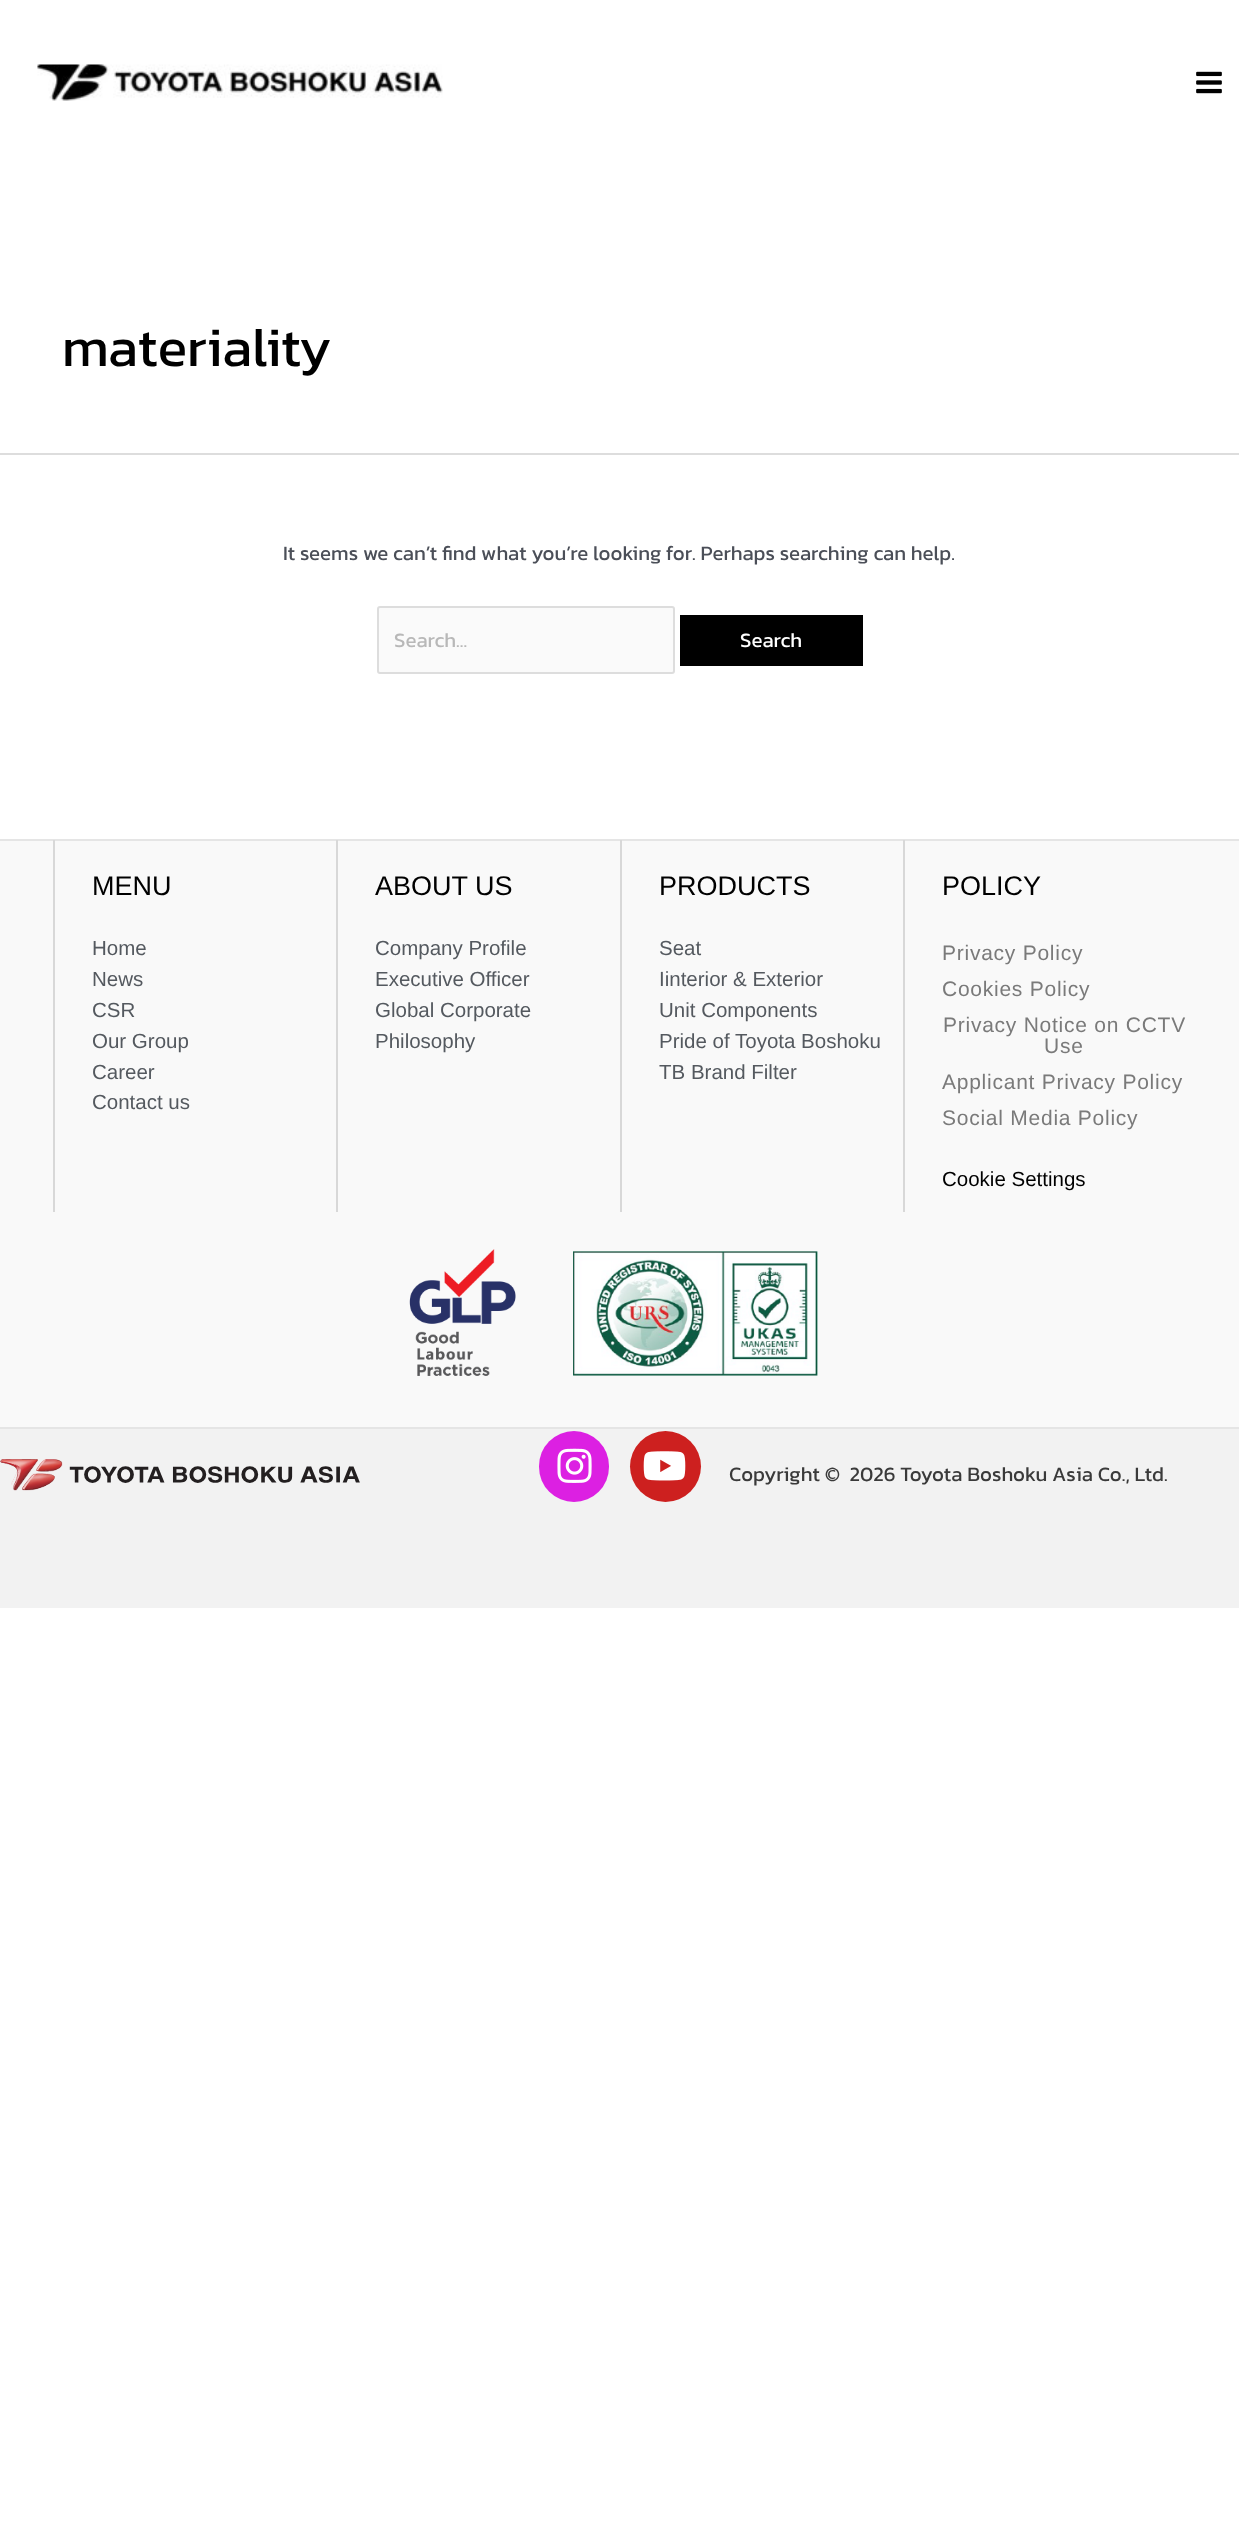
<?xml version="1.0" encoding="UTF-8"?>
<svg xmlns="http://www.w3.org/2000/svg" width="1239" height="2529">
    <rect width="100%" height="100%" fill="#FFFFFF"/>
    <image x="37" y="64" width="406" height="37" href="img_01.png"/>
    <image x="1196" y="71" width="26" height="23" href="img_02.png"/>
    <rect x="0" y="453" width="1239" height="2" fill="#DDDDDD"/>
    <text x="62" y="366" font-family="Kanit" font-size="54.75" fill="#000000">materiality</text>
    <text x="283" y="560" font-family="Kanit" font-size="20.5" fill="#4B4F58">It seems we can’t find what you’re looking for. Perhaps searching can help.</text>
    <rect x="378" y="607" width="296" height="66" rx="2" fill="#FAFAFA" stroke="#DDDDDD" stroke-width="2"/>
    <text x="394" y="647" font-family="Kanit" font-size="20.5" fill="#B8B8B8">Search...</text>
    <rect x="680" y="615" width="183" height="51" fill="#000000"/>
    <text x="740" y="647" font-family="Kanit" font-size="20.5" fill="#FFFFFF">Search</text>
    <rect x="0" y="841" width="1239" height="586" fill="#F9F9F9"/>
    <rect x="0" y="839" width="1239" height="2" fill="#E5E5E5"/>
    <rect x="53" y="840" width="2" height="372" fill="#D8D8D8"/>
    <text x="92" y="895" font-family="Liberation Sans" font-size="27" fill="#000000">MENU</text>
    <text font-family="Liberation Sans" font-size="20.5" fill="#54595F">
        <tspan x="92" y="955">Home</tspan>
        <tspan x="92" y="986">News</tspan>
        <tspan x="92" y="1017">CSR</tspan>
        <tspan x="92" y="1048">Our Group</tspan>
        <tspan x="92" y="1079">Career</tspan>
        <tspan x="92" y="1109">Contact us</tspan>
    </text>
    <rect x="336" y="840" width="2" height="372" fill="#D8D8D8"/>
    <text x="375" y="895" font-family="Liberation Sans" font-size="27" fill="#000000">ABOUT US</text>
    <text font-family="Liberation Sans" font-size="20.5" fill="#54595F">
        <tspan x="375" y="955">Company Profile</tspan>
        <tspan x="375" y="986">Executive Officer</tspan>
        <tspan x="375" y="1017">Global Corporate</tspan>
        <tspan x="375" y="1048">Philosophy</tspan>
    </text>
    <rect x="620" y="840" width="2" height="372" fill="#D8D8D8"/>
    <text x="659" y="895" font-family="Liberation Sans" font-size="27" fill="#000000">PRODUCTS</text>
    <text font-family="Liberation Sans" font-size="20.5" fill="#54595F">
        <tspan x="659" y="955">Seat</tspan>
        <tspan x="659" y="986">Iinterior &amp; Exterior</tspan>
        <tspan x="659" y="1017">Unit Components</tspan>
        <tspan x="659" y="1048">Pride of Toyota Boshoku</tspan>
        <tspan x="659" y="1079">TB Brand Filter</tspan>
    </text>
    <rect x="903" y="840" width="2" height="372" fill="#D8D8D8"/>
    <text x="942" y="895" font-family="Liberation Sans" font-size="27" fill="#000000">POLICY</text>
    <text font-family="Liberation Sans" font-size="21" letter-spacing="0.75" fill="#7A7A7A">
        <tspan x="942" y="960">Privacy Policy</tspan>
        <tspan x="942" y="996">Cookies Policy</tspan>
    </text>
    <text x="943" y="1032" font-family="Liberation Sans" font-size="21" letter-spacing="0.75" fill="#7A7A7A">Privacy Notice on CCTV</text>
    <text x="1044" y="1053" font-family="Liberation Sans" font-size="21" letter-spacing="0.75" fill="#7A7A7A">Use</text>
    <text font-family="Liberation Sans" font-size="21" letter-spacing="0.75" fill="#7A7A7A">
        <tspan x="942" y="1089">Applicant Privacy Policy</tspan>
        <tspan x="942" y="1125">Social Media Policy</tspan>
    </text>
    <text x="942" y="1186" font-family="Liberation Sans" font-size="20.5" fill="#000000">Cookie Settings</text>
    <image x="409" y="1249" width="107" height="127" href="img_03.png"/>
    <image x="573" y="1251" width="245" height="125" href="img_04.png"/>
    <rect x="0" y="1429" width="1239" height="179" fill="#F2F2F2"/>
    <rect x="539" y="1431" width="70" height="71" rx="35" fill="#DC20E2"/>
    <image x="557" y="1448" width="35" height="35" href="img_05.png"/>
    <circle cx="665.5" cy="1466.5" r="35.5" fill="#CD201F"/>
    <image x="643" y="1451" width="43" height="30" href="img_06.png"/>
    <rect x="0" y="1427" width="1239" height="2" fill="#E5E5E5"/>
    <image x="0" y="1459" width="360" height="32" href="img_07.png"/>
    <text x="729" y="1481" font-family="Kanit" font-size="20.5" fill="#3A3A3A" xml:space="preserve">Copyright ©  2026 Toyota Boshoku Asia Co., Ltd.</text>
</svg>
